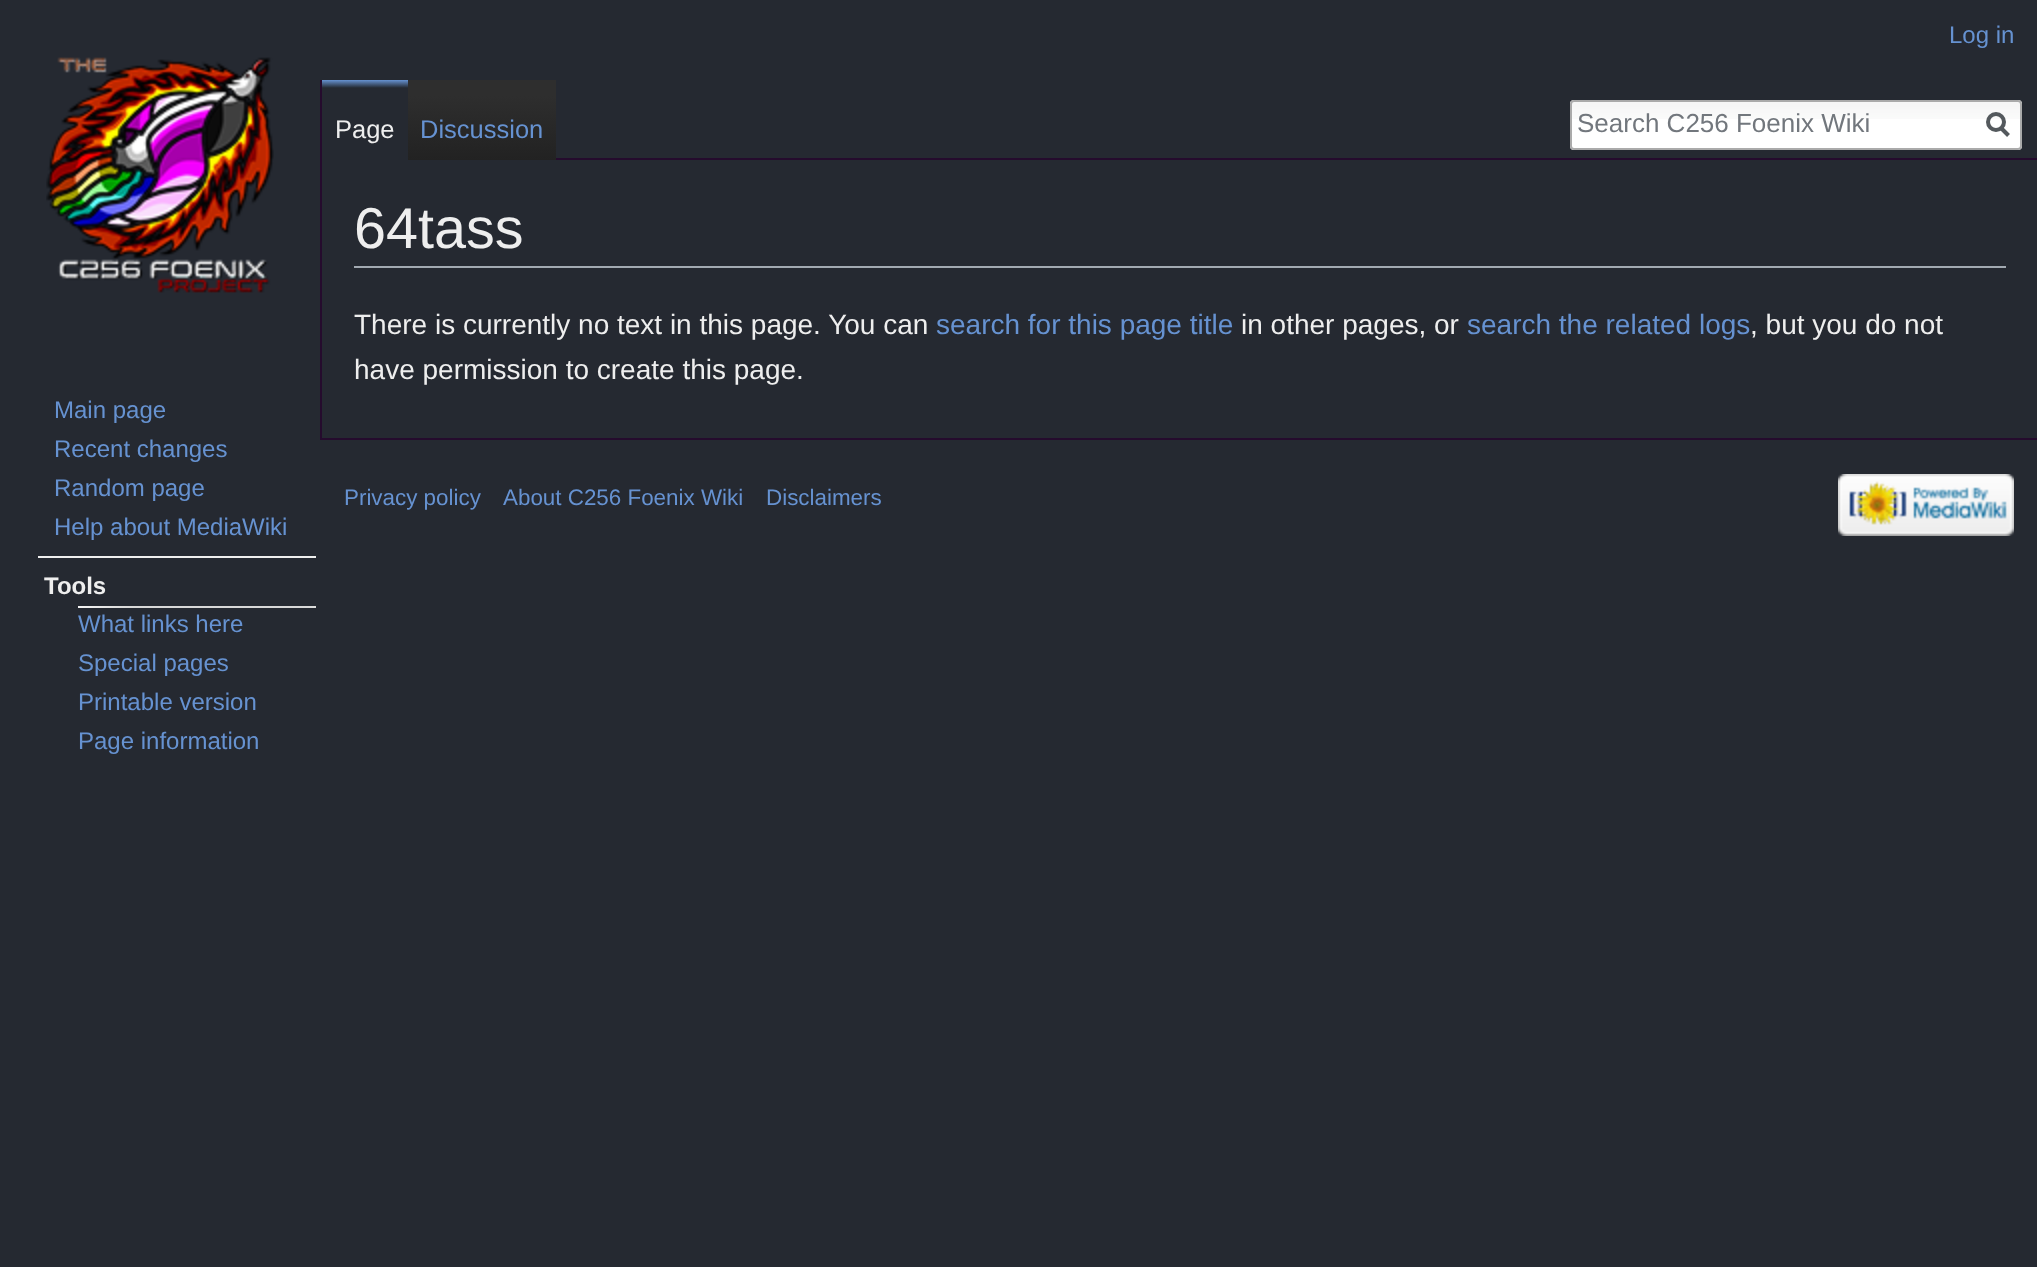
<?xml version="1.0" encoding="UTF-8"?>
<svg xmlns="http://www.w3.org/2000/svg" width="2037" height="1267">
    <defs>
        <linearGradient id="g1" gradientUnits="userSpaceOnUse" x1="365" y1="80" x2="365" y2="160"><stop offset="0" stop-color="#6692D1"/><stop offset="0.1" stop-color="#23282F"/></linearGradient>
        <linearGradient id="g2" gradientUnits="userSpaceOnUse" x1="482" y1="80" x2="482" y2="160"><stop offset="0.2" stop-color="#2E2E2E"/><stop offset="1" stop-color="#222222"/></linearGradient>
    </defs>
    <rect width="100%" height="100%" fill="#252931"/>
    <text x="1949" y="43" font-family="Liberation Sans" font-size="24" fill="#6692D1">Log in</text>
    <rect x="322" y="80" width="86" height="8" fill="url(#g1)"/>
    <text x="335" y="138" font-family="Liberation Sans" font-size="25.5" fill="#EEEEEE">Page</text>
    <rect x="408" y="80" width="148" height="80" fill="url(#g2)"/>
    <text x="420" y="138" font-family="Liberation Sans" font-size="25.5" fill="#6692D1">Discussion</text>
    <rect x="1570" y="100" width="452" height="50" rx="4" fill="#FFFFFF"/>
    <image x="1570" y="102" width="452" height="17" href="img_01.png"/>
    <rect x="1571" y="101" width="450" height="48" rx="3" fill="none" stroke="#AAAAAA" stroke-width="2"/>
    <text x="1577" y="132" font-family="Liberation Sans" font-size="26" fill="#72777D">Search C256 Foenix Wiki</text>
    <path d="M 2008.5 135.5 L 2000.5 127.5" fill="none" stroke="#54595D" stroke-width="4"/>
    <circle cx="1996" cy="122" r="8" fill="none" stroke="#54595D" stroke-width="4"/>
    <image x="46" y="57" width="228" height="236" href="img_02.png"/>
    <text font-family="Liberation Sans" font-size="24" fill="#6692D1">
        <tspan x="54" y="418">Main page</tspan>
        <tspan x="54" y="457">Recent changes</tspan>
        <tspan x="54" y="496">Random page</tspan>
        <tspan x="54" y="535">Help about MediaWiki</tspan>
    </text>
    <rect x="38" y="556" width="278" height="2" fill="#EEEEEE"/>
    <text x="44" y="594" font-family="Liberation Sans" font-size="24" font-weight="700" fill="#EEEEEE">Tools</text>
    <image x="78" y="606" width="238" height="2" href="img_03.png"/>
    <text font-family="Liberation Sans" font-size="24" fill="#6692D1">
        <tspan x="78" y="632">What links here</tspan>
        <tspan x="78" y="671">Special pages</tspan>
        <tspan x="78" y="710">Printable version</tspan>
        <tspan x="78" y="749">Page information</tspan>
    </text>
    <rect x="556" y="158" width="1481" height="2" fill="#250B2D"/>
    <rect x="320" y="438" width="1717" height="2" fill="#250B2D"/>
    <rect x="320" y="80" width="2" height="360" fill="#250B2D"/>
    <rect x="354" y="266" width="1652" height="2" fill="#A2A9B1"/>
    <text x="354" y="248" font-family="Liberation Sans" font-size="57.5" fill="#EEEEEE">64tass</text>
    <text x="354" y="334" font-family="Liberation Sans" font-size="28" fill="#EEEEEE">There is currently no text in this page. You can</text>
    <text x="936" y="334" font-family="Liberation Sans" font-size="28" fill="#6692D1">search for this page title</text>
    <text x="1241" y="334" font-family="Liberation Sans" font-size="28" fill="#EEEEEE">in other pages, or</text>
    <text x="1467" y="334" font-family="Liberation Sans" font-size="28" fill="#6692D1">search the related logs</text>
    <text x="1750" y="334" font-family="Liberation Sans" font-size="28" fill="#EEEEEE">, but you do not</text>
    <text x="354" y="379" font-family="Liberation Sans" font-size="28" fill="#EEEEEE">have permission to create this page.</text>
    <text x="344" y="505" font-family="Liberation Sans" font-size="22.4" fill="#6692D1">Privacy policy</text>
    <text x="503" y="505" font-family="Liberation Sans" font-size="22.4" fill="#6692D1">About C256 Foenix Wiki</text>
    <text x="766" y="505" font-family="Liberation Sans" font-size="22.4" fill="#6692D1">Disclaimers</text>
    <image x="1838" y="474" width="176" height="62" href="img_04.png"/>
</svg>
